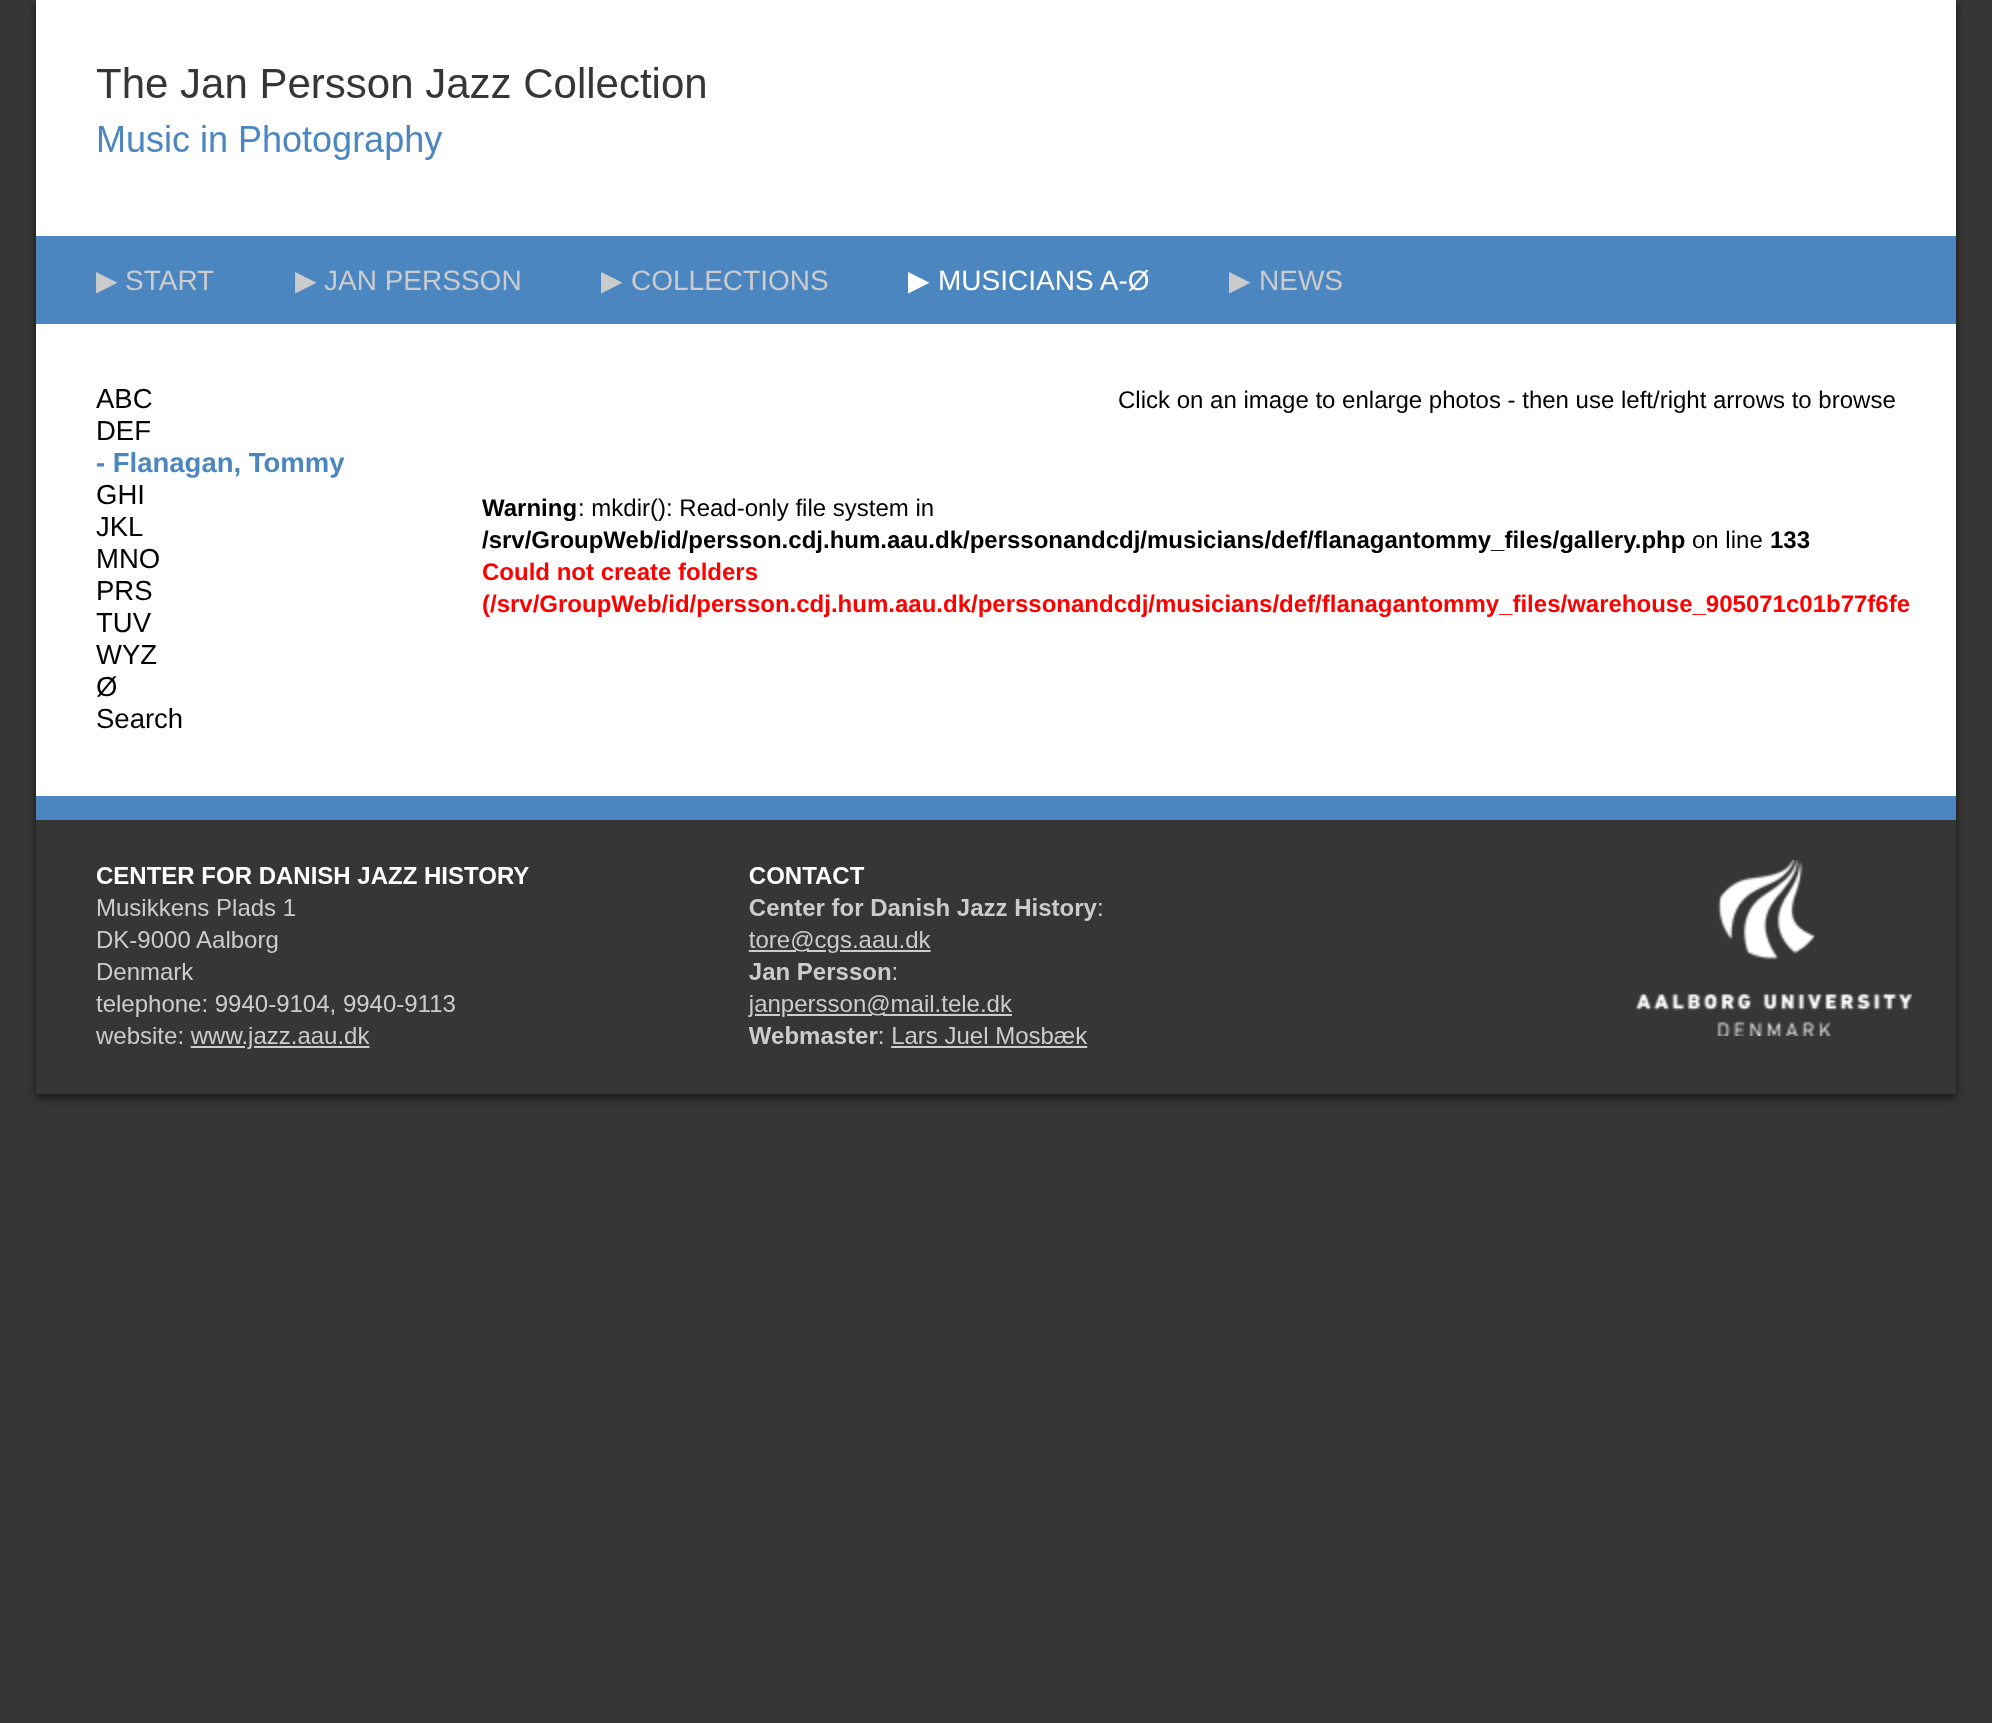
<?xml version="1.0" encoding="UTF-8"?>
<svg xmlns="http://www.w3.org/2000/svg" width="1992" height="1723">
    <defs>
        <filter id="blur1" x="-50%" y="-200%" width="200%" height="500%"><feGaussianBlur stdDeviation="5"/></filter>
    </defs>
    <rect width="100%" height="100%" fill="#363636"/>
    <rect x="36" y="4" width="1920" height="1094" fill="#000000" fill-opacity="0.6" filter="url(#blur1)"/>
    <rect x="36" y="0" width="1920" height="796" fill="#FFFFFF"/>
    <image x="96" y="67" width="609" height="93" href="img_01.png"/>
    <rect x="36" y="236" width="1920" height="88" fill="#4B86C1"/>
    <text x="96" y="290" font-family="DejaVu Sans" font-size="28" fill="#CCCCCC">▶</text>
    <text x="125" y="290" font-family="Liberation Sans" font-size="28" fill="#CCCCCC">START</text>
    <text x="295" y="290" font-family="DejaVu Sans" font-size="28" fill="#CCCCCC">▶</text>
    <text x="324" y="290" font-family="Liberation Sans" font-size="28" fill="#CCCCCC">JAN PERSSON</text>
    <text x="601" y="290" font-family="DejaVu Sans" font-size="28" fill="#CCCCCC">▶</text>
    <text x="631" y="290" font-family="Liberation Sans" font-size="28" fill="#CCCCCC">COLLECTIONS</text>
    <text x="908" y="290" font-family="DejaVu Sans" font-size="28" fill="#FFFFFF">▶</text>
    <text x="938" y="290" font-family="Liberation Sans" font-size="28" fill="#FFFFFF">MUSICIANS A-Ø</text>
    <text x="1229" y="290" font-family="DejaVu Sans" font-size="28" fill="#CCCCCC">▶</text>
    <text x="1259" y="290" font-family="Liberation Sans" font-size="28" fill="#CCCCCC">NEWS</text>
    <text font-family="Liberation Sans" font-size="27.5" fill="#000000">
        <tspan x="96" y="408">ABC</tspan>
        <tspan x="96" y="440">DEF</tspan>
    </text>
    <text x="96" y="472" font-family="Liberation Sans" font-size="27.5" font-weight="700" fill="#4B86C1">- Flanagan, Tommy</text>
    <text font-family="Liberation Sans" font-size="27.5" fill="#000000">
        <tspan x="96" y="504">GHI</tspan>
        <tspan x="96" y="536">JKL</tspan>
        <tspan x="96" y="568">MNO</tspan>
        <tspan x="96" y="600">PRS</tspan>
        <tspan x="96" y="632">TUV</tspan>
        <tspan x="96" y="664">WYZ</tspan>
        <tspan x="96" y="696">Ø</tspan>
        <tspan x="96" y="728">Search</tspan>
    </text>
    <text x="1118" y="408" font-family="Liberation Sans" font-size="24" fill="#000000">Click on an image to enlarge photos - then use left/right arrows to browse</text>
    <text x="482" y="516" font-family="Liberation Sans" font-size="24" font-weight="700" fill="#000000">Warning</text>
    <text x="578" y="516" font-family="Liberation Sans" font-size="24" fill="#000000">: mkdir(): Read-only file system in</text>
    <text x="482" y="548" font-family="Liberation Sans" font-size="24" font-weight="700" fill="#000000">/srv/GroupWeb/id/persson.cdj.hum.aau.dk/perssonandcdj/musicians/def/flanagantommy_files/gallery.php</text>
    <text x="1692" y="548" font-family="Liberation Sans" font-size="24" fill="#000000">on line</text>
    <text x="1770" y="548" font-family="Liberation Sans" font-size="24" font-weight="700" fill="#000000">133</text>
    <text font-family="Liberation Sans" font-size="24" font-weight="700" fill="#FF0000">
        <tspan x="482" y="580">Could not create folders</tspan>
        <tspan x="482" y="612">(/srv/GroupWeb/id/persson.cdj.hum.aau.dk/perssonandcdj/musicians/def/flanagantommy_files/warehouse_905071c01b77f6fe</tspan>
    </text>
    <rect x="36" y="796" width="1920" height="24" fill="#4B86C1"/>
    <rect x="36" y="820" width="1920" height="274" fill="#363636"/>
    <image x="96" y="860" width="1816" height="189" href="img_02.png"/>
</svg>
